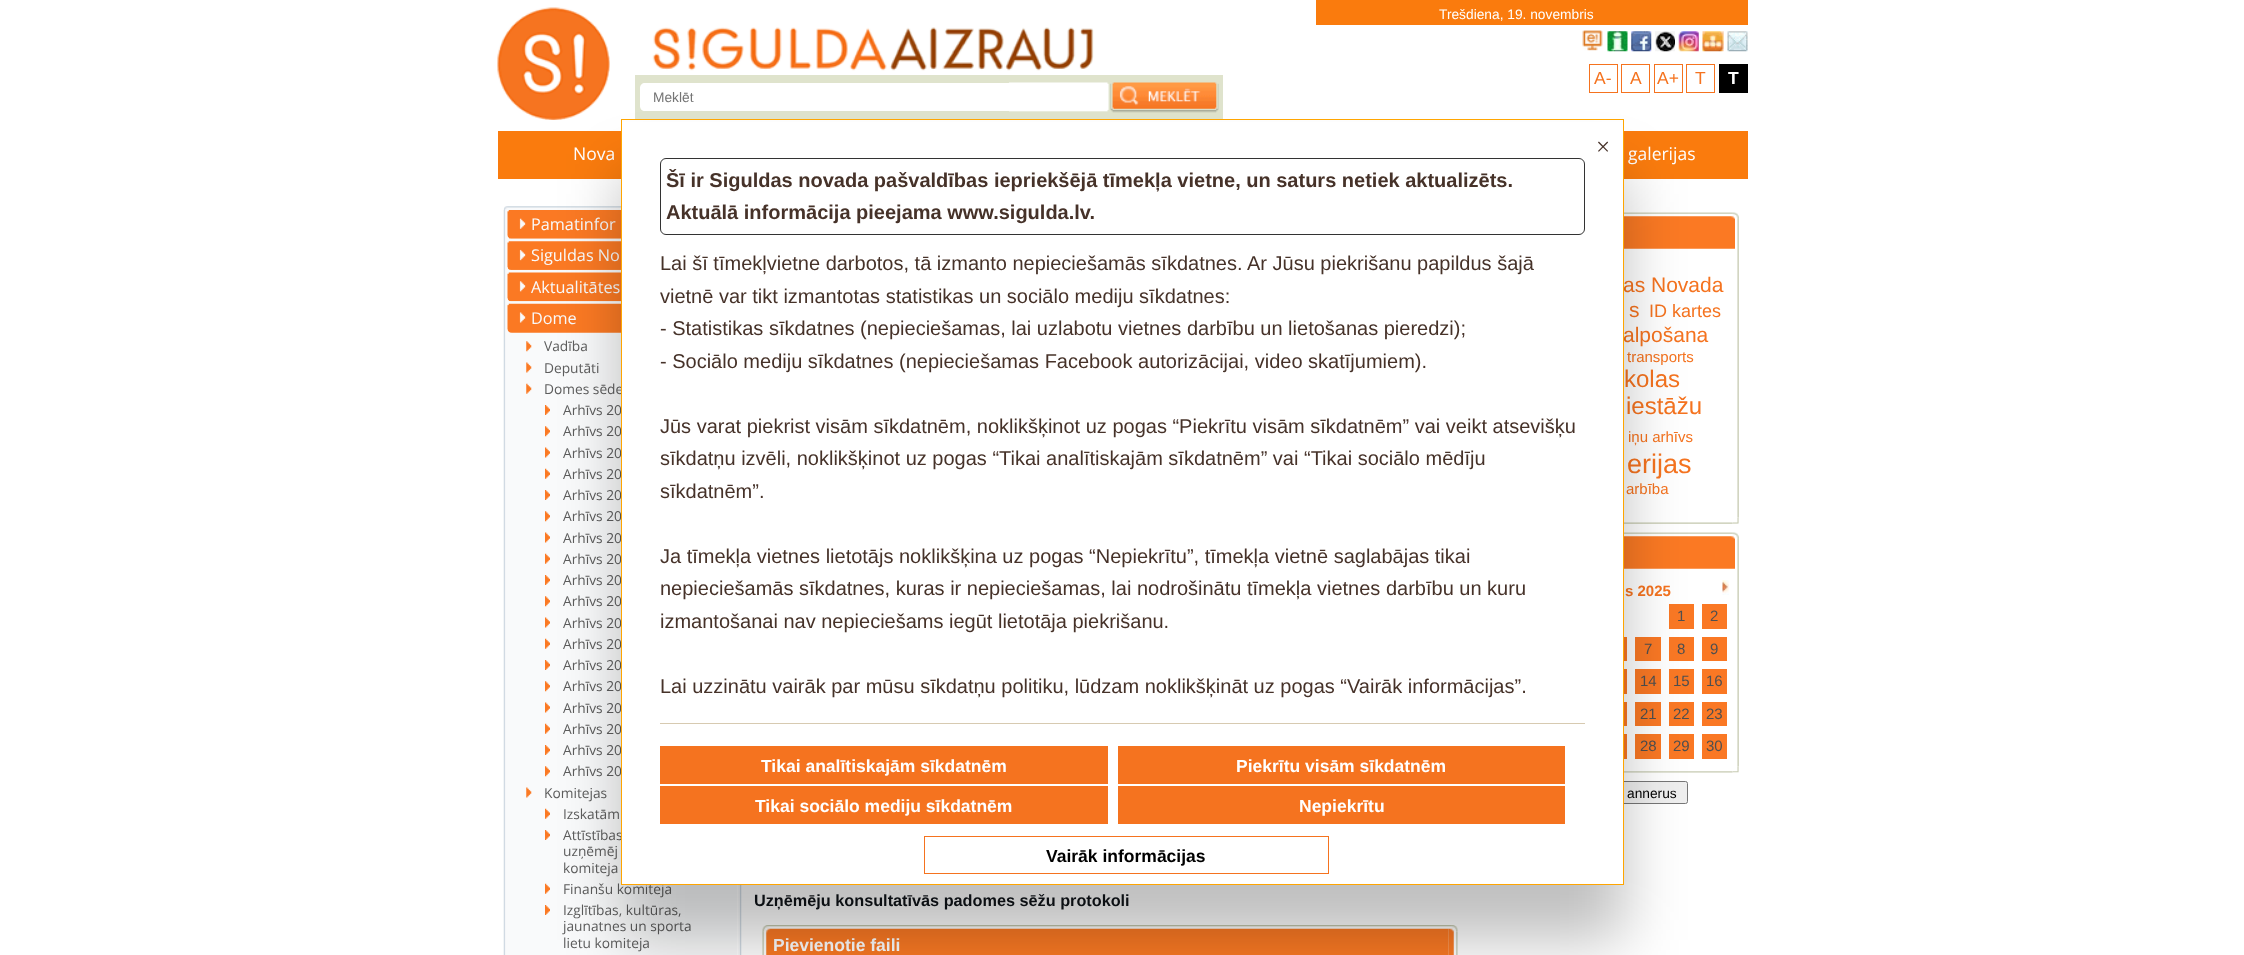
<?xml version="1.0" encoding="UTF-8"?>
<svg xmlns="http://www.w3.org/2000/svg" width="2244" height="955">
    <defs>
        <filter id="blur1" x="-50%" y="-200%" width="200%" height="500%"><feGaussianBlur stdDeviation="30"/></filter>
    </defs>
    <rect width="100%" height="100%" fill="#FFFFFF"/>
    <image x="497" y="7" width="113" height="113" href="img_01.png"/>
    <image x="652" y="27" width="442" height="44" href="img_02.png"/>
    <rect x="1316" y="0" width="432" height="25" fill="#FA7B0D"/>
    <text x="1439" y="19" font-family="Liberation Sans" font-size="13.75" fill="#FFFFFF">Trešdiena, 19. novembris</text>
    <image x="1582" y="30" width="21" height="21" href="img_03.png"/>
    <image x="1607" y="31" width="21" height="21" href="img_04.png"/>
    <image x="1631" y="31" width="21" height="21" href="img_05.png"/>
    <image x="1655" y="31" width="20" height="21" href="img_06.png"/>
    <image x="1678" y="31" width="21" height="21" href="img_07.png"/>
    <image x="1702" y="31" width="22" height="21" href="img_08.png"/>
    <image x="1727" y="31" width="21" height="21" href="img_09.png"/>
    <rect x="1589.5" y="64.5" width="28" height="28" fill="none" stroke="#F5731F"/>
    <text x="1594" y="84" font-family="Liberation Sans" font-size="17.5" fill="#F5731F">A-</text>
    <rect x="1621.5" y="64.5" width="28" height="28" fill="none" stroke="#F5731F"/>
    <text x="1630" y="84" font-family="Liberation Sans" font-size="17.5" fill="#F5731F">A</text>
    <rect x="1654.5" y="64.5" width="28" height="28" fill="none" stroke="#F5731F"/>
    <text x="1657" y="84" font-family="Liberation Sans" font-size="17.5" fill="#F5731F">A+</text>
    <rect x="1686.5" y="64.5" width="28" height="28" fill="none" stroke="#F5731F"/>
    <text x="1695" y="84" font-family="Liberation Sans" font-size="17.5" fill="#F5731F">T</text>
    <rect x="1719" y="64" width="29" height="29" fill="#000000"/>
    <text x="1728" y="84" font-family="Liberation Sans" font-size="17.5" font-weight="700" fill="#FFFFFF">T</text>
    <rect x="635" y="75" width="588" height="44" fill="#DFE3CC"/>
    <image x="1008" y="82" width="101" height="30" href="img_10.png"/>
    <path d="M 645 83 H 1009 V 111 H 645 C 642 111 640 109 640 106 V 88 C 640 85 642 83 645 83 Z" fill="#FFFFFF"/>
    <text x="653" y="102" font-family="Liberation Sans" font-size="13.75" fill="#757575">Meklēt</text>
    <image x="1110" y="82" width="109" height="31" href="img_11.png"/>
    <rect x="498" y="131" width="1250" height="48" fill="#FA7B0D"/>
    <text x="573" y="160" font-family="Open Sans" font-size="17.5" fill="#FFFFFF">Nova</text>
    <text x="1628" y="160" font-family="Open Sans" font-size="17.5" fill="#FFFFFF">galerijas</text>
    <image x="503" y="206" width="118" height="4" href="img_12.png"/>
    <image x="504" y="206" width="117" height="3" href="img_13.png"/>
    <image x="503" y="210" width="234" height="745" href="img_14.png"/>
    <image x="507" y="210" width="114" height="29" href="img_15.png"/>
    <text x="531" y="230" font-family="Open Sans" font-size="16.25" fill="#F9FAFB">Pamatinfor</text>
    <image x="507" y="241" width="114" height="29" href="img_16.png"/>
    <text x="531" y="261" font-family="Open Sans" font-size="16.25" fill="#F9FAFB">Siguldas No</text>
    <image x="507" y="272" width="114" height="30" href="img_17.png"/>
    <text x="531" y="293" font-family="Open Sans" font-size="16.25" fill="#F9FAFB">Aktualitātes</text>
    <path d="M 508 304 H 738 V 329 C 738 331 736 333 734 333 H 512 C 510 333 508 331 508 329 Z" fill="#FB7923"/>
    <image x="507" y="303" width="114" height="30" href="img_18.png"/>
    <text x="531" y="324" font-family="Open Sans" font-size="16.25" fill="#F9FAFB">Dome</text>
    <image x="526" y="341" width="6" height="11" href="img_19.png"/>
    <text x="544" y="351" font-family="Open Sans" font-size="13.75" fill="#5D5D5D">Vadība</text>
    <image x="526" y="362" width="6" height="11" href="img_20.png"/>
    <text x="544" y="373" font-family="Open Sans" font-size="13.75" fill="#5D5D5D">Deputāti</text>
    <image x="526" y="383" width="6" height="11" href="img_21.png"/>
    <text x="544" y="394" font-family="Open Sans" font-size="13.75" fill="#5D5D5D">Domes sēde</text>
    <image x="545" y="405" width="5" height="10" href="img_22.png"/>
    <text x="563" y="415" font-family="Open Sans" font-size="13.75" fill="#5D5D5D">Arhīvs 20</text>
    <image x="545" y="426" width="5" height="11" href="img_23.png"/>
    <text x="563" y="436" font-family="Open Sans" font-size="13.75" fill="#5D5D5D">Arhīvs 20</text>
    <image x="545" y="447" width="5" height="11" href="img_24.png"/>
    <text x="563" y="458" font-family="Open Sans" font-size="13.75" fill="#5D5D5D">Arhīvs 20</text>
    <image x="545" y="468" width="5" height="11" href="img_25.png"/>
    <text x="563" y="479" font-family="Open Sans" font-size="13.75" fill="#5D5D5D">Arhīvs 20</text>
    <image x="545" y="490" width="5" height="10" href="img_22.png"/>
    <text x="563" y="500" font-family="Open Sans" font-size="13.75" fill="#5D5D5D">Arhīvs 20</text>
    <image x="545" y="511" width="5" height="11" href="img_23.png"/>
    <text x="563" y="521" font-family="Open Sans" font-size="13.75" fill="#5D5D5D">Arhīvs 20</text>
    <image x="545" y="532" width="5" height="11" href="img_24.png"/>
    <text x="563" y="543" font-family="Open Sans" font-size="13.75" fill="#5D5D5D">Arhīvs 20</text>
    <image x="545" y="553" width="5" height="11" href="img_25.png"/>
    <text x="563" y="564" font-family="Open Sans" font-size="13.75" fill="#5D5D5D">Arhīvs 20</text>
    <image x="545" y="575" width="5" height="10" href="img_22.png"/>
    <text x="563" y="585" font-family="Open Sans" font-size="13.75" fill="#5D5D5D">Arhīvs 20</text>
    <image x="545" y="596" width="5" height="11" href="img_23.png"/>
    <text x="563" y="606" font-family="Open Sans" font-size="13.75" fill="#5D5D5D">Arhīvs 20</text>
    <image x="545" y="617" width="5" height="11" href="img_24.png"/>
    <text x="563" y="628" font-family="Open Sans" font-size="13.75" fill="#5D5D5D">Arhīvs 20</text>
    <image x="545" y="638" width="5" height="11" href="img_25.png"/>
    <text x="563" y="649" font-family="Open Sans" font-size="13.75" fill="#5D5D5D">Arhīvs 20</text>
    <image x="545" y="660" width="5" height="10" href="img_22.png"/>
    <text x="563" y="670" font-family="Open Sans" font-size="13.75" fill="#5D5D5D">Arhīvs 20</text>
    <image x="545" y="681" width="5" height="11" href="img_23.png"/>
    <text x="563" y="691" font-family="Open Sans" font-size="13.75" fill="#5D5D5D">Arhīvs 20</text>
    <image x="545" y="702" width="5" height="11" href="img_24.png"/>
    <text x="563" y="713" font-family="Open Sans" font-size="13.75" fill="#5D5D5D">Arhīvs 20</text>
    <image x="545" y="723" width="5" height="11" href="img_25.png"/>
    <text x="563" y="734" font-family="Open Sans" font-size="13.75" fill="#5D5D5D">Arhīvs 20</text>
    <image x="545" y="745" width="5" height="10" href="img_22.png"/>
    <text x="563" y="755" font-family="Open Sans" font-size="13.75" fill="#5D5D5D">Arhīvs 20</text>
    <image x="545" y="766" width="5" height="11" href="img_23.png"/>
    <text x="563" y="776" font-family="Open Sans" font-size="13.75" fill="#5D5D5D">Arhīvs 20</text>
    <image x="526" y="787" width="6" height="11" href="img_20.png"/>
    <text x="544" y="798" font-family="Open Sans" font-size="13.75" fill="#5D5D5D">Komitejas</text>
    <image x="545" y="808" width="5" height="11" href="img_25.png"/>
    <text x="563" y="819" font-family="Open Sans" font-size="13.75" fill="#5D5D5D">Izskatām</text>
    <image x="545" y="830" width="5" height="10" href="img_22.png"/>
    <text font-family="Open Sans" font-size="13.75" fill="#5D5D5D">
        <tspan x="563" y="840">Attīstības</tspan>
        <tspan x="563" y="856">uzņēmēj</tspan>
        <tspan x="563" y="873">komiteja</tspan>
    </text>
    <image x="545" y="883" width="5" height="11" href="img_25.png"/>
    <text x="563" y="894" font-family="Open Sans" font-size="13.75" fill="#5D5D5D">Finanšu komiteja</text>
    <image x="545" y="905" width="5" height="10" href="img_22.png"/>
    <text font-family="Open Sans" font-size="13.75" fill="#5D5D5D">
        <tspan x="563" y="915">Izglītības, kultūras,</tspan>
        <tspan x="563" y="931">jaunatnes un sporta</tspan>
        <tspan x="563" y="948">lietu komiteja</tspan>
    </text>
    <image x="738" y="885" width="4" height="70" href="img_26.png"/>
    <image x="1624" y="212" width="109" height="312" href="img_27.png"/>
    <image x="1624" y="212" width="109" height="5" href="img_28.png"/>
    <image x="1737" y="218" width="2" height="300" href="img_33.png"/>
    <image x="1732" y="212" width="7" height="312" href="img_29.png"/>
    <image x="1732" y="212" width="7" height="7" href="img_30.png"/>
    <image x="1624" y="216" width="106" height="33" href="img_31.png"/>
    <image x="1730" y="216" width="5" height="33" href="img_32.png"/>
    <text x="1623" y="292" font-family="Liberation Sans" font-size="21" fill="#F5731F">as Novada</text>
    <text x="1629" y="317" font-family="Liberation Sans" font-size="21" fill="#F5731F">s</text>
    <text x="1649" y="317" font-family="Liberation Sans" font-size="18" fill="#F5731F">ID kartes</text>
    <text x="1623" y="342" font-family="Liberation Sans" font-size="21" fill="#F5731F">alpošana</text>
    <text x="1627" y="362" font-family="Liberation Sans" font-size="15" fill="#F5731F">transports</text>
    <text x="1624" y="387" font-family="Liberation Sans" font-size="24" fill="#F5731F">kolas</text>
    <text x="1626" y="414" font-family="Liberation Sans" font-size="24" fill="#F5731F">iestāžu</text>
    <text x="1628" y="442" font-family="Liberation Sans" font-size="15" fill="#F5731F">iņu arhīvs</text>
    <text x="1627" y="473" font-family="Liberation Sans" font-size="27" fill="#F5731F">erijas</text>
    <text x="1626" y="494" font-family="Liberation Sans" font-size="15" fill="#F5731F">arbība</text>
    <image x="1624" y="532" width="109" height="241" href="img_34.png"/>
    <image x="1624" y="532" width="109" height="5" href="img_28.png"/>
    <image x="1737" y="538" width="2" height="229" href="img_36.png"/>
    <image x="1732" y="532" width="7" height="241" href="img_35.png"/>
    <image x="1732" y="532" width="7" height="7" href="img_30.png"/>
    <image x="1624" y="536" width="106" height="33" href="img_31.png"/>
    <image x="1730" y="536" width="5" height="33" href="img_32.png"/>
    <text x="1625" y="596" font-family="Liberation Sans" font-size="15" font-weight="700" fill="#F5731F">s 2025</text>
    <image x="1722" y="580" width="7" height="15" href="img_37.png"/>
    <rect x="1669" y="604" width="25" height="25" fill="#FA7824"/>
    <text x="1677" y="621" font-family="Liberation Sans" font-size="15" fill="#4F4F4F">1</text>
    <rect x="1702" y="604" width="25" height="25" fill="#FA7824"/>
    <text x="1710" y="621" font-family="Liberation Sans" font-size="15" fill="#4F4F4F">2</text>
    <rect x="1624" y="637" width="3" height="24" fill="#FA7824"/>
    <rect x="1635" y="637" width="26" height="24" fill="#FA7824"/>
    <text x="1644" y="654" font-family="Liberation Sans" font-size="15" fill="#4F4F4F">7</text>
    <rect x="1669" y="637" width="25" height="24" fill="#FA7824"/>
    <text x="1677" y="654" font-family="Liberation Sans" font-size="15" fill="#4F4F4F">8</text>
    <rect x="1702" y="637" width="25" height="24" fill="#FA7824"/>
    <text x="1710" y="654" font-family="Liberation Sans" font-size="15" fill="#4F4F4F">9</text>
    <rect x="1624" y="669" width="3" height="25" fill="#FA7824"/>
    <rect x="1635" y="669" width="26" height="25" fill="#FA7824"/>
    <text x="1640" y="686" font-family="Liberation Sans" font-size="15" fill="#4F4F4F">14</text>
    <rect x="1669" y="669" width="25" height="25" fill="#FA7824"/>
    <text x="1673" y="686" font-family="Liberation Sans" font-size="15" fill="#4F4F4F">15</text>
    <rect x="1702" y="669" width="25" height="25" fill="#FA7824"/>
    <text x="1706" y="686" font-family="Liberation Sans" font-size="15" fill="#4F4F4F">16</text>
    <rect x="1624" y="702" width="3" height="24" fill="#FA7824"/>
    <rect x="1635" y="702" width="26" height="24" fill="#FA7824"/>
    <text x="1640" y="719" font-family="Liberation Sans" font-size="15" fill="#4F4F4F">21</text>
    <rect x="1669" y="702" width="25" height="24" fill="#FA7824"/>
    <text x="1673" y="719" font-family="Liberation Sans" font-size="15" fill="#4F4F4F">22</text>
    <rect x="1702" y="702" width="25" height="24" fill="#FA7824"/>
    <text x="1706" y="719" font-family="Liberation Sans" font-size="15" fill="#4F4F4F">23</text>
    <rect x="1624" y="734" width="3" height="25" fill="#FA7824"/>
    <rect x="1635" y="734" width="26" height="25" fill="#FA7824"/>
    <text x="1640" y="751" font-family="Liberation Sans" font-size="15" fill="#4F4F4F">28</text>
    <rect x="1669" y="734" width="25" height="25" fill="#FA7824"/>
    <text x="1673" y="751" font-family="Liberation Sans" font-size="15" fill="#4F4F4F">29</text>
    <rect x="1702" y="734" width="25" height="25" fill="#FA7824"/>
    <text x="1706" y="751" font-family="Liberation Sans" font-size="15" fill="#4F4F4F">30</text>
    <rect x="1540.5" y="781.5" width="147" height="22" rx="2" fill="#EFEFEF" stroke="#767676"/>
    <text x="1627" y="798" font-family="Liberation Sans" font-size="13.75" fill="#000000">annerus</text>
    <text x="754" y="906" font-family="Liberation Sans" font-size="16.25" font-weight="700" fill="#0F1419">Uzņēmēju konsultatīvās padomes sēžu protokoli</text>
    <image x="762" y="925" width="690" height="7" href="img_38.png"/>
    <image x="762" y="925" width="690" height="7" href="img_39.png"/>
    <image x="1451" y="925" width="7" height="6" href="img_40.png"/>
    <image x="1451" y="925" width="7" height="6" href="img_41.png"/>
    <image x="762" y="931" width="2" height="24" href="img_42.png"/>
    <image x="766" y="928" width="683" height="27" href="img_43.png"/>
    <image x="1448" y="928" width="6" height="27" href="img_44.png"/>
    <text x="773" y="951" font-family="Liberation Sans" font-size="17.5" font-weight="700" fill="#FFFFFF">Pievienotie faili</text>
    <image x="1456" y="931" width="2" height="24" href="img_45.png"/>
    <rect x="621" y="174" width="1003" height="766" fill="#000000" fill-opacity="0.25" filter="url(#blur1)"/>
    <rect x="622" y="122" width="1001" height="762" fill="#FFFFFF"/>
    <rect x="621.5" y="119.5" width="1002" height="765" fill="none" stroke="#FFA500"/>
    <text x="1596" y="155" font-family="Liberation Serif" font-size="25" fill="#463229">×</text>
    <rect x="660" y="723" width="925" height="1" fill="#D7CAB1"/>
    <rect x="660.5" y="158.5" width="924" height="76" rx="5.5" fill="none" stroke="#333333"/>
    <text font-family="Liberation Sans" font-size="20" font-weight="700" fill="#463229">
        <tspan x="666" y="187">Šī ir Siguldas novada pašvaldības iepriekšējā tīmekļa vietne, un saturs netiek aktualizēts.</tspan>
        <tspan x="666" y="219">Aktuālā informācija pieejama www.sigulda.lv.</tspan>
    </text>
    <text x="660" y="270" font-family="Liberation Sans" font-size="20" fill="#463229">Lai šī tīmekļvietne darbotos, tā izmanto nepieciešamās sīkdatnes.</text>
    <text x="1247" y="270" font-family="Liberation Sans" font-size="20" fill="#463229">Ar Jūsu piekrišanu papildus šajā</text>
    <text font-family="Liberation Sans" font-size="20" fill="#463229">
        <tspan x="660" y="303">vietnē var tikt izmantotas statistikas un sociālo mediju sīkdatnes:</tspan>
        <tspan x="660" y="335">- Statistikas sīkdatnes (nepieciešamas, lai uzlabotu vietnes darbību un lietošanas pieredzi);</tspan>
        <tspan x="660" y="368">- Sociālo mediju sīkdatnes (nepieciešamas Facebook autorizācijai, video skatījumiem).</tspan>
    </text>
    <text font-family="Liberation Sans" font-size="20" fill="#463229">
        <tspan x="660" y="433">Jūs varat piekrist visām sīkdatnēm, noklikšķinot uz pogas “Piekrītu visām sīkdatnēm” vai veikt atsevišķu</tspan>
        <tspan x="660" y="465">sīkdatņu izvēli, noklikšķinot uz pogas “Tikai analītiskajām sīkdatnēm” vai “Tikai sociālo mēdīju</tspan>
        <tspan x="660" y="498">sīkdatnēm”.</tspan>
    </text>
    <text font-family="Liberation Sans" font-size="20" fill="#463229">
        <tspan x="660" y="563">Ja tīmekļa vietnes lietotājs noklikšķina uz pogas “Nepiekrītu”, tīmekļa vietnē saglabājas tikai</tspan>
        <tspan x="660" y="595">nepieciešamās sīkdatnes, kuras ir nepieciešamas, lai nodrošinātu tīmekļa vietnes darbību un kuru</tspan>
        <tspan x="660" y="628">izmantošanai nav nepieciešams iegūt lietotāja piekrišanu.</tspan>
    </text>
    <text x="660" y="693" font-family="Liberation Sans" font-size="20" fill="#463229">Lai uzzinātu vairāk par mūsu sīkdatņu politiku, lūdzam noklikšķināt uz pogas “Vairāk informācijas”.</text>
    <rect x="660" y="746" width="448" height="38" fill="#F5731F"/>
    <text x="761" y="772" font-family="Liberation Sans" font-size="17.5" font-weight="700" fill="#FFFFFF">Tikai analītiskajām sīkdatnēm</text>
    <rect x="1118" y="746" width="447" height="38" fill="#F5731F"/>
    <text x="1236" y="772" font-family="Liberation Sans" font-size="17.5" font-weight="700" fill="#FFFFFF">Piekrītu visām sīkdatnēm</text>
    <rect x="660" y="786" width="448" height="38" fill="#F5731F"/>
    <text x="755" y="812" font-family="Liberation Sans" font-size="17.5" font-weight="700" fill="#FFFFFF">Tikai sociālo mediju sīkdatnēm</text>
    <rect x="1118" y="786" width="447" height="38" fill="#F5731F"/>
    <text x="1299" y="812" font-family="Liberation Sans" font-size="17.5" font-weight="700" fill="#FFFFFF">Nepiekrītu</text>
    <rect x="924.5" y="836.5" width="404" height="37" fill="none" stroke="#F5731F"/>
    <text x="1046" y="862" font-family="Liberation Sans" font-size="17.5" font-weight="700" fill="#000000">Vairāk informācijas</text>
</svg>
